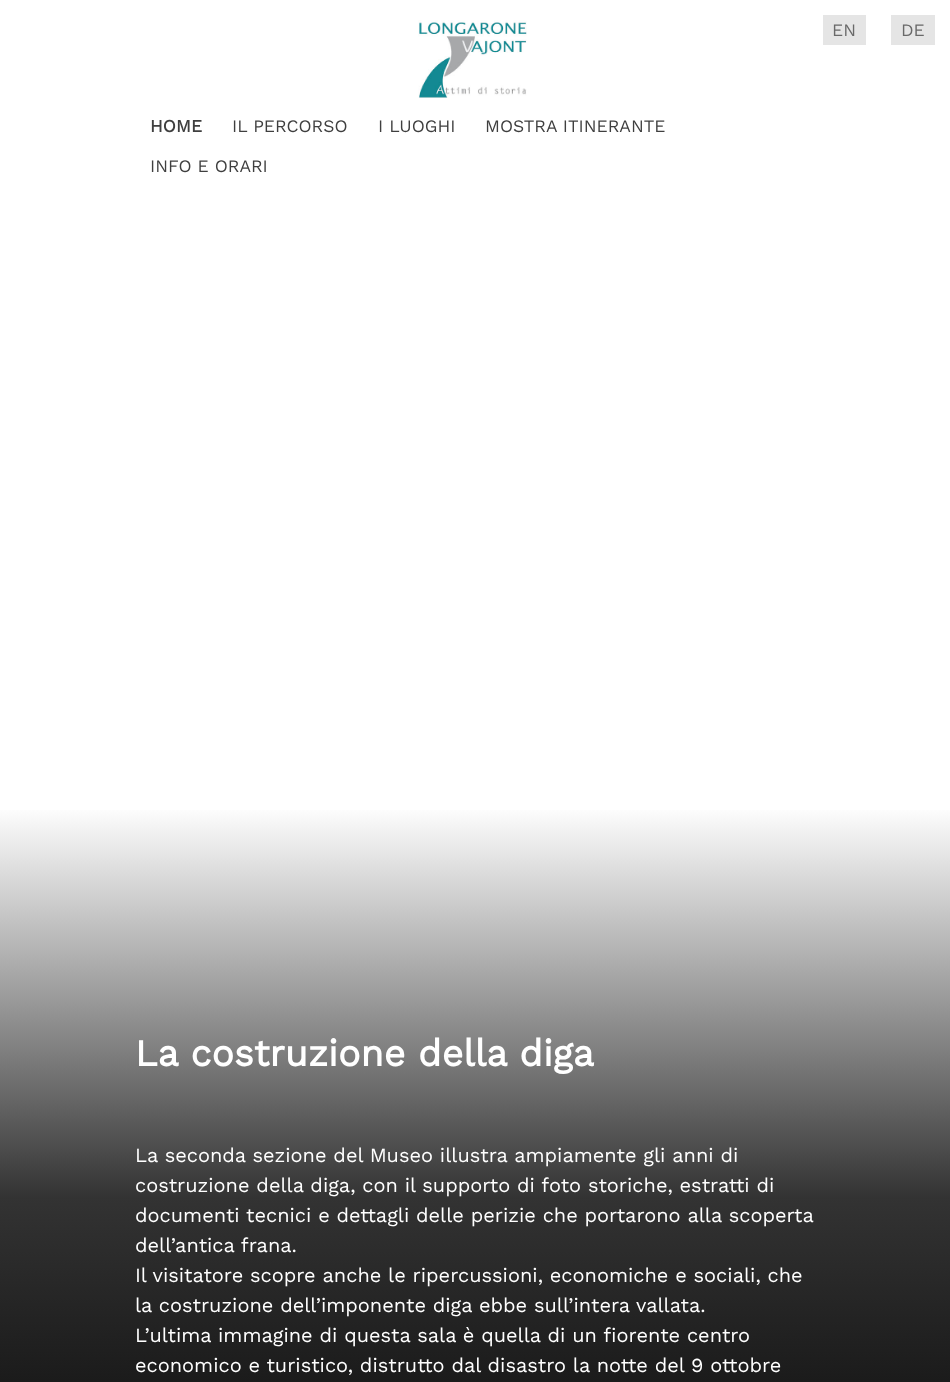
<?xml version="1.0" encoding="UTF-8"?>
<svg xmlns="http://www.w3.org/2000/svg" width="950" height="1382">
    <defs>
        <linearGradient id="g1" gradientUnits="userSpaceOnUse" x1="475" y1="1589" x2="475" y2="805"><stop offset="0" stop-color="#000000"/><stop offset="0.5" stop-color="#333333"/><stop offset="1" stop-color="#FFFFFF"/></linearGradient>
    </defs>
    <rect width="100%" height="100%" fill="#FFFFFF"/>
    <image x="418" y="20" width="109" height="78" href="img_01.png"/>
    <rect x="823" y="15" width="43" height="30" fill="#E5E5E5"/>
    <text x="832" y="36" font-family="Work Sans" font-size="17.5" fill="#696969">EN</text>
    <rect x="891" y="15" width="44" height="30" fill="#E5E5E5"/>
    <text x="901" y="36" font-family="Work Sans" font-size="17.5" fill="#696969">DE</text>
    <text x="150" y="132" font-family="Work Sans" font-size="17.5" font-weight="700" fill="#3F3F3F">HOME</text>
    <text x="232" y="132" font-family="Work Sans" font-size="17.5" fill="#3F3F3F">IL PERCORSO</text>
    <text x="378" y="132" font-family="Work Sans" font-size="17.5" fill="#3F3F3F">I LUOGHI</text>
    <text x="485" y="132" font-family="Work Sans" font-size="17.5" fill="#3F3F3F">MOSTRA ITINERANTE</text>
    <text x="150" y="172" font-family="Work Sans" font-size="17.5" fill="#3F3F3F">INFO E ORARI</text>
    <rect x="0" y="810" width="950" height="572" fill="url(#g1)"/>
    <text x="135" y="1066" font-family="Work Sans" font-size="37.5" font-weight="700" fill="#FFFFFF">La costruzione della diga</text>
    <text font-family="Work Sans" font-size="20" fill="#FFFFFF">
        <tspan x="135" y="1162">La seconda sezione del Museo illustra ampiamente gli anni di</tspan>
        <tspan x="135" y="1192">costruzione della diga, con il supporto di foto storiche, estratti di</tspan>
        <tspan x="135" y="1222">documenti tecnici e dettagli delle perizie che portarono alla scoperta</tspan>
        <tspan x="135" y="1252">dell’antica frana.</tspan>
        <tspan x="135" y="1282">Il visitatore scopre anche le ripercussioni, economiche e sociali, che</tspan>
        <tspan x="135" y="1312">la costruzione dell’imponente diga ebbe sull’intera vallata.</tspan>
        <tspan x="135" y="1342">L’ultima immagine di questa sala è quella di un fiorente centro</tspan>
        <tspan x="135" y="1372">economico e turistico, distrutto dal disastro la notte del 9 ottobre</tspan>
    </text>
</svg>
